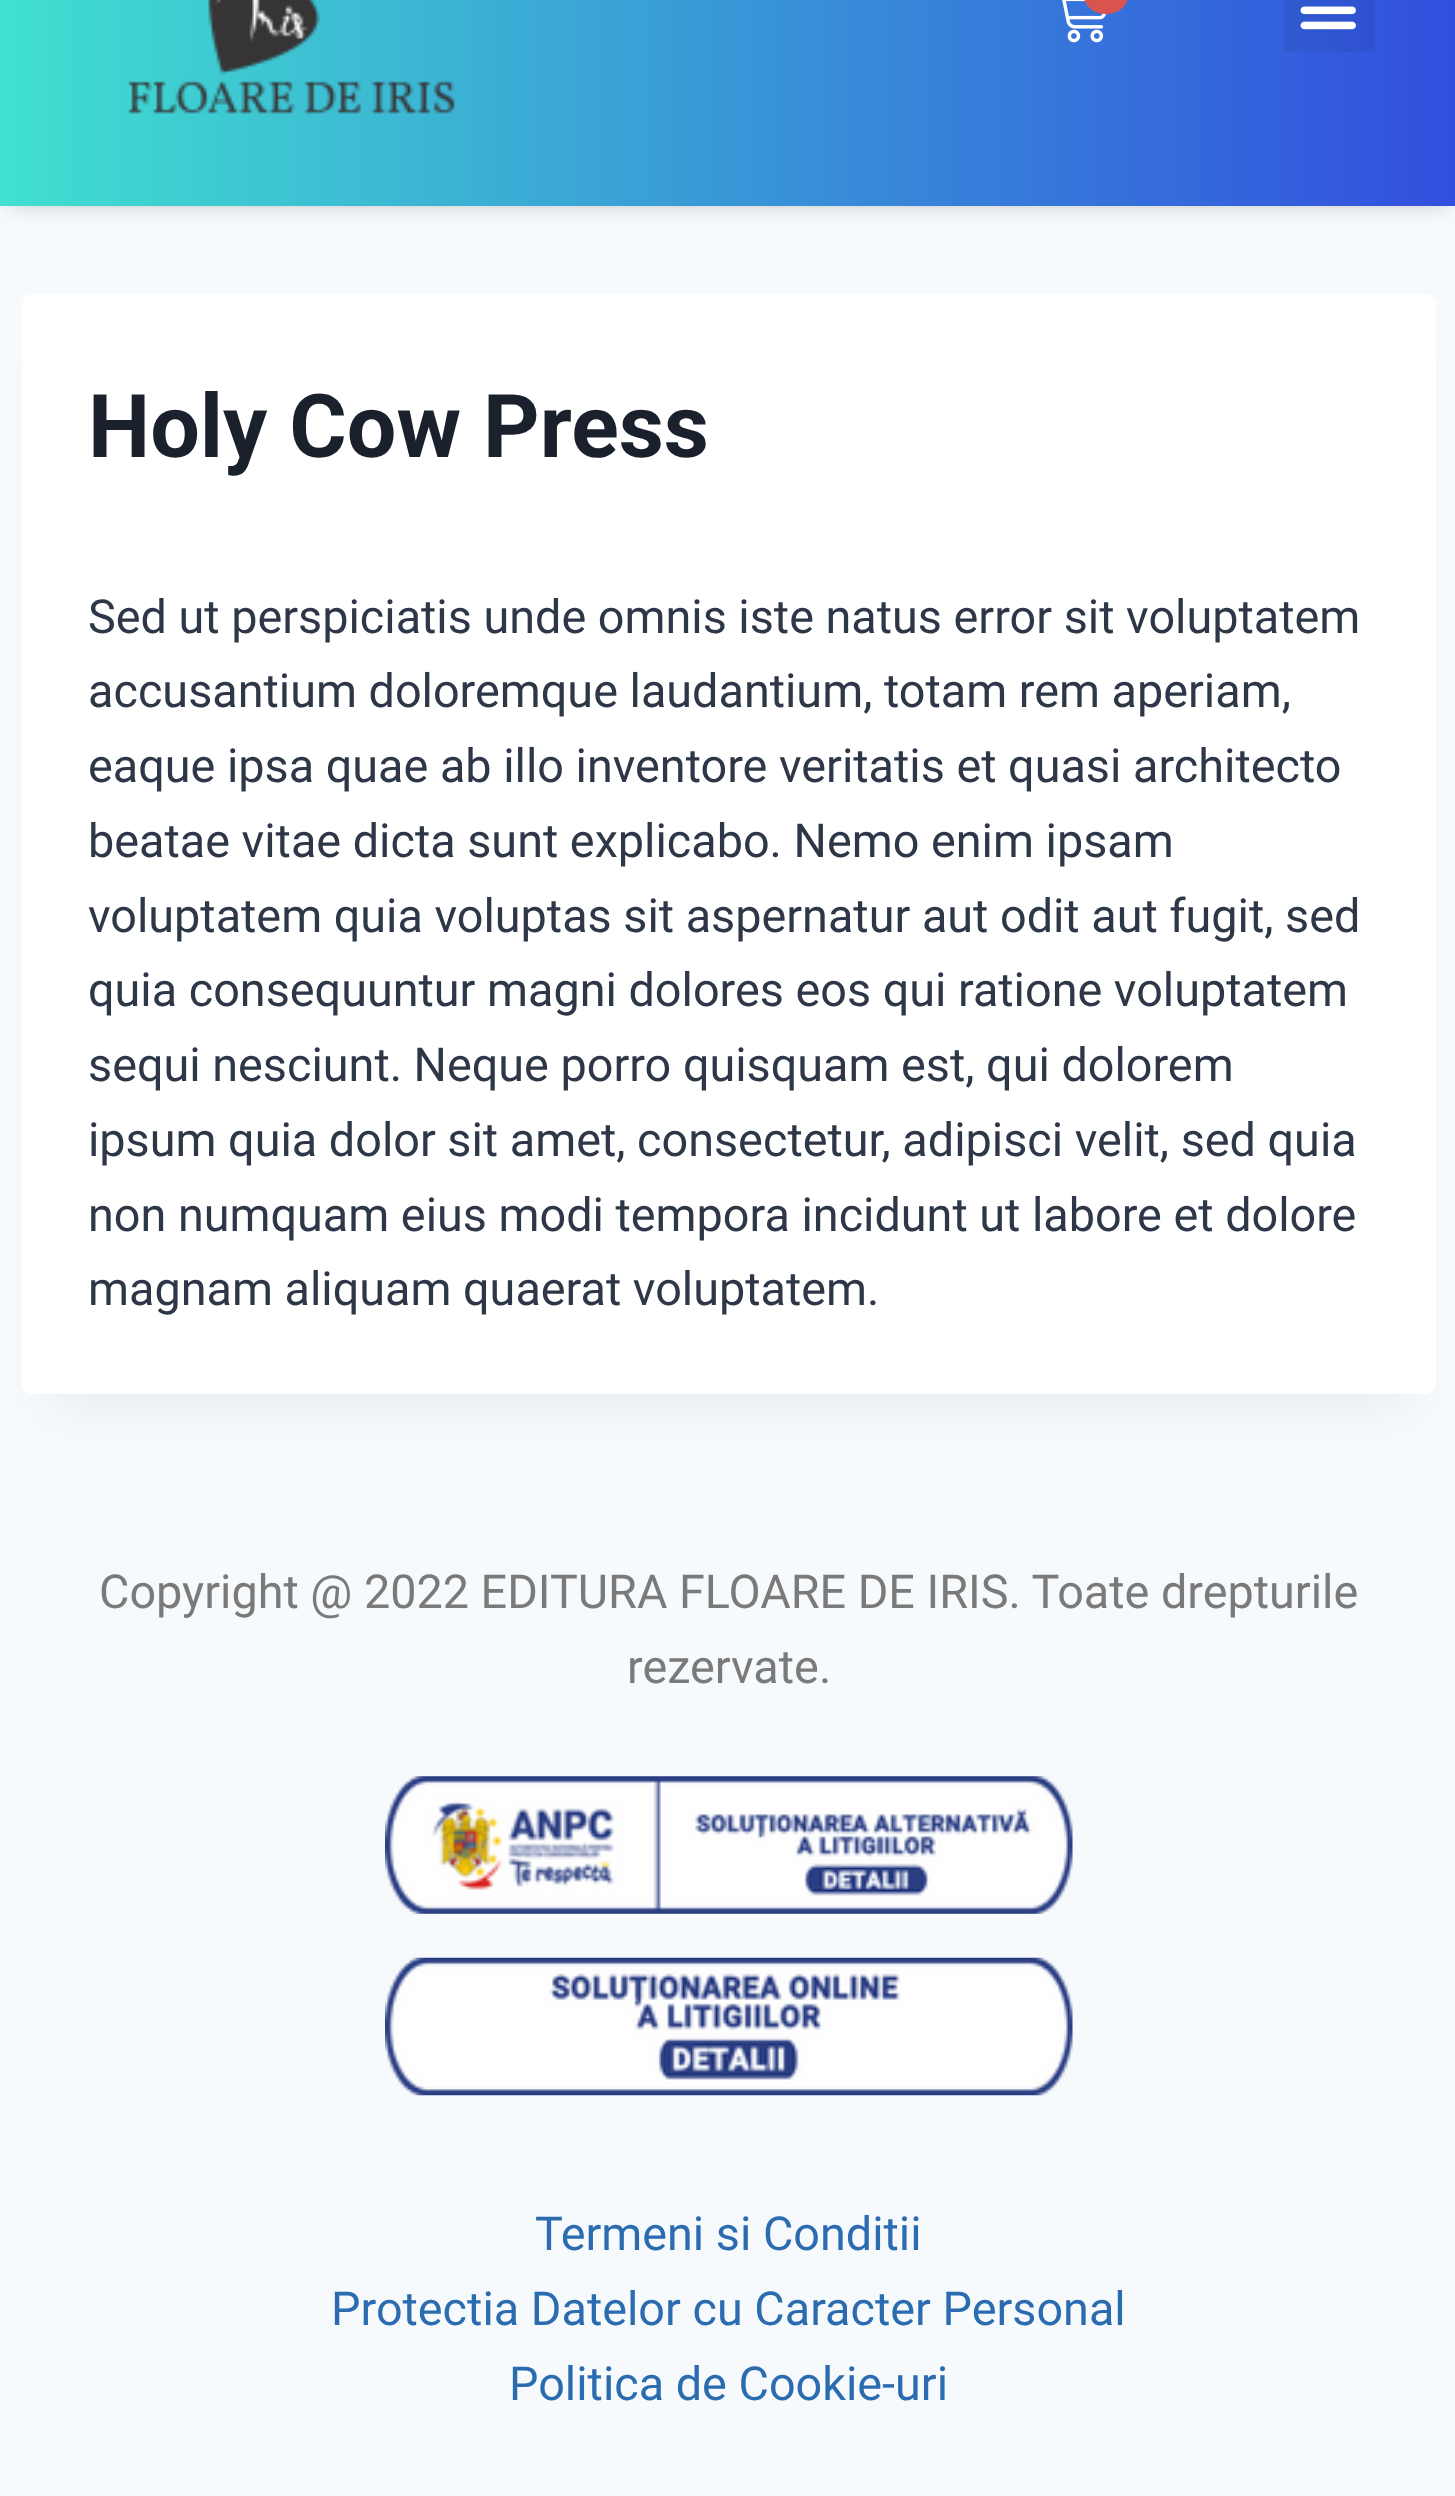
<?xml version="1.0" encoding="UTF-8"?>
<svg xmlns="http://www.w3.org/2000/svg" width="1455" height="2496">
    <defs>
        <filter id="blur1" x="-50%" y="-200%" width="200%" height="500%"><feGaussianBlur stdDeviation="14"/></filter>
        <linearGradient id="g1" gradientUnits="userSpaceOnUse" x1="0" y1="36" x2="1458" y2="36"><stop offset="0" stop-color="#40E0D0"/><stop offset="1" stop-color="#324EDE"/></linearGradient>
        <filter id="blur2" x="-50%" y="-200%" width="200%" height="500%"><feGaussianBlur stdDeviation="20.5"/></filter>
    </defs>
    <rect width="100%" height="100%" fill="#F7FAFC"/>
    <rect x="11" y="-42" width="1436" height="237" fill="#000000" fill-opacity="0.5" filter="url(#blur1)"/>
    <rect x="0" y="0" width="1455" height="206" fill="url(#g1)"/>
    <image x="128" y="0" width="327" height="114" href="img_01.png"/>
    <image x="1062" y="0" width="44" height="43" href="img_02.png"/>
    <rect x="1084" y="-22" width="44" height="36" rx="22" fill="#D9534F"/>
    <rect x="1284" y="0" width="91" height="52" fill="#000000" fill-opacity="0.05"/>
    <image x="1300" y="6" width="56" height="24" href="img_03.png"/>
    <rect x="50" y="363" width="1358" height="1045" fill="#000000" fill-opacity="0.05" filter="url(#blur2)"/>
    <rect x="22" y="294" width="1414" height="1100" rx="11" fill="#FFFFFF"/>
    <text x="88" y="457" font-family="Roboto" font-size="88" font-weight="700" fill="#1A202C">Holy Cow Press</text>
    <text font-family="Roboto" font-size="46.75" fill="#2D3748">
        <tspan x="88" y="633">Sed ut perspiciatis unde omnis iste natus error sit voluptatem</tspan>
        <tspan x="88" y="707">accusantium doloremque laudantium, totam rem aperiam,</tspan>
        <tspan x="88" y="782">eaque ipsa quae ab illo inventore veritatis et quasi architecto</tspan>
        <tspan x="88" y="857">beatae vitae dicta sunt explicabo. Nemo enim ipsam</tspan>
        <tspan x="88" y="932">voluptatem quia voluptas sit aspernatur aut odit aut fugit, sed</tspan>
        <tspan x="88" y="1006">quia consequuntur magni dolores eos qui ratione voluptatem</tspan>
        <tspan x="88" y="1081">sequi nesciunt. Neque porro quisquam est, qui dolorem</tspan>
        <tspan x="88" y="1156">ipsum quia dolor sit amet, consectetur, adipisci velit, sed quia</tspan>
        <tspan x="88" y="1231">non numquam eius modi tempora incidunt ut labore et dolore</tspan>
        <tspan x="88" y="1305">magnam aliquam quaerat voluptatem.</tspan>
    </text>
    <text x="99" y="1608" font-family="Roboto" font-size="46.75" fill="#7A7A7A">Copyright @ 2022 EDITURA FLOARE DE IRIS. Toate drepturile</text>
    <text x="627" y="1683" font-family="Roboto" font-size="46.75" fill="#7A7A7A">rezervate.</text>
    <image x="385" y="1776" width="688" height="138" href="img_04.png"/>
    <image x="385" y="1957" width="688" height="139" href="img_05.png"/>
    <text x="535" y="2250" font-family="Roboto" font-size="46.75" fill="#2B6CB0">Termeni si Conditii</text>
    <text x="331" y="2325" font-family="Roboto" font-size="46.75" fill="#2B6CB0">Protectia Datelor cu Caracter Personal</text>
    <text x="509" y="2400" font-family="Roboto" font-size="46.75" fill="#2B6CB0">Politica de Cookie-uri</text>
</svg>
